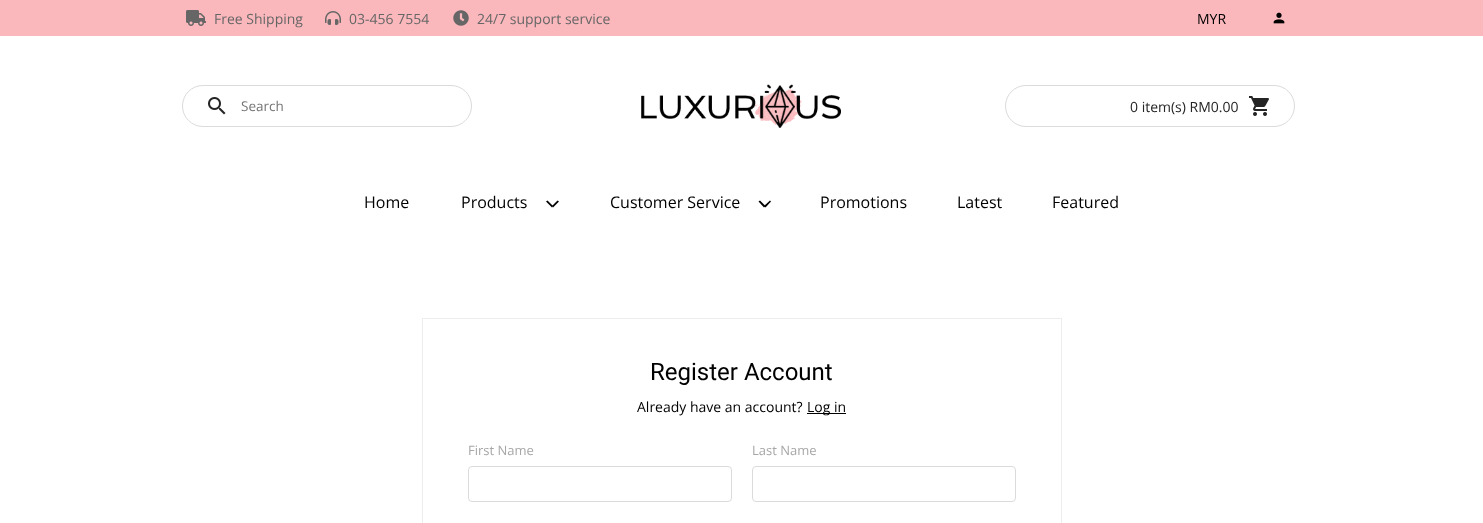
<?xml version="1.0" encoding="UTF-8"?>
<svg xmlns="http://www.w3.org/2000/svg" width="1483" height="523">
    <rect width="100%" height="100%" fill="#FFFFFF"/>
    <rect x="0" y="0" width="1483" height="36" fill="#FAB8BC"/>
    <image x="186" y="10" width="20" height="16" href="img_01.png"/>
    <text x="214" y="24" font-family="Open Sans" font-size="14" fill="#666666">Free Shipping</text>
    <image x="325" y="11" width="16" height="14" href="img_02.png"/>
    <text x="349" y="24" font-family="Open Sans" font-size="14" fill="#666666">03-456 7554</text>
    <image x="453" y="10" width="16" height="16" href="img_03.png"/>
    <text x="477" y="24" font-family="Open Sans" font-size="14" fill="#666666">24/7 support service</text>
    <text x="1197" y="24" font-family="Open Sans" font-size="14" fill="#000000">MYR</text>
    <image x="1273" y="12" width="12" height="12" href="img_04.png"/>
    <rect x="182.5" y="85.5" width="289" height="41" rx="20.5" fill="none" stroke="#DBDBDB"/>
    <image x="208" y="97" width="18" height="18" href="img_05.png"/>
    <text x="241" y="111" font-family="Open Sans" font-size="13.5" fill="#757575">Search</text>
    <image x="641" y="84" width="200" height="44" href="img_06.png"/>
    <rect x="1005.5" y="85.5" width="289" height="41" rx="20.5" fill="none" stroke="#DBDBDB"/>
    <text x="1130" y="112" font-family="Open Sans" font-size="14" fill="#252525">0 item(s) RM0.00</text>
    <image x="1249" y="96" width="20" height="20" href="img_07.png"/>
    <text x="364" y="208" font-family="Open Sans" font-size="16" fill="#000000">Home</text>
    <text x="461" y="208" font-family="Open Sans" font-size="16" fill="#000000">Products</text>
    <path d="M 552 206 L 557.5 200.5 L 559 201.5 L 553 207.5 Z" fill="#000000"/>
    <path d="M 546 201.5 L 547.5 200.5 L 553 206 L 552 207.5 Z" fill="#000000"/>
    <text x="610" y="208" font-family="Open Sans" font-size="16" fill="#000000">Customer Service</text>
    <path d="M 764 206 L 770 200.5 L 771 201.5 L 765.5 207.5 Z" fill="#000000"/>
    <path d="M 758.5 201.5 L 760 200.5 L 765.5 206 L 764 207.5 Z" fill="#000000"/>
    <text x="820" y="208" font-family="Open Sans" font-size="16" fill="#000000">Promotions</text>
    <text x="957" y="208" font-family="Open Sans" font-size="16" fill="#000000">Latest</text>
    <text x="1052" y="208" font-family="Open Sans" font-size="16" fill="#000000">Featured</text>
    <rect x="422.5" y="318.5" width="639" height="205" fill="none" stroke="#EDEDED"/>
    <text x="650" y="380" font-family="Roboto" font-size="24" fill="#000000">Register Account</text>
    <text x="637" y="412" font-family="Open Sans" font-size="14" fill="#000000">Already have an account?</text>
    <rect x="807" y="413" width="39" height="1" fill="#000000"/>
    <text x="807" y="412" font-family="Open Sans" font-size="14" fill="#000000">Log in</text>
    <text x="468" y="455" font-family="Open Sans" font-size="13" fill="#A7A7A7">First Name</text>
    <rect x="468.5" y="466.5" width="263" height="35" rx="3.5" fill="none" stroke="#DBDBDB"/>
    <text x="752" y="455" font-family="Open Sans" font-size="13" fill="#A7A7A7">Last Name</text>
    <rect x="752.5" y="466.5" width="263" height="35" rx="3.5" fill="none" stroke="#DBDBDB"/>
</svg>
